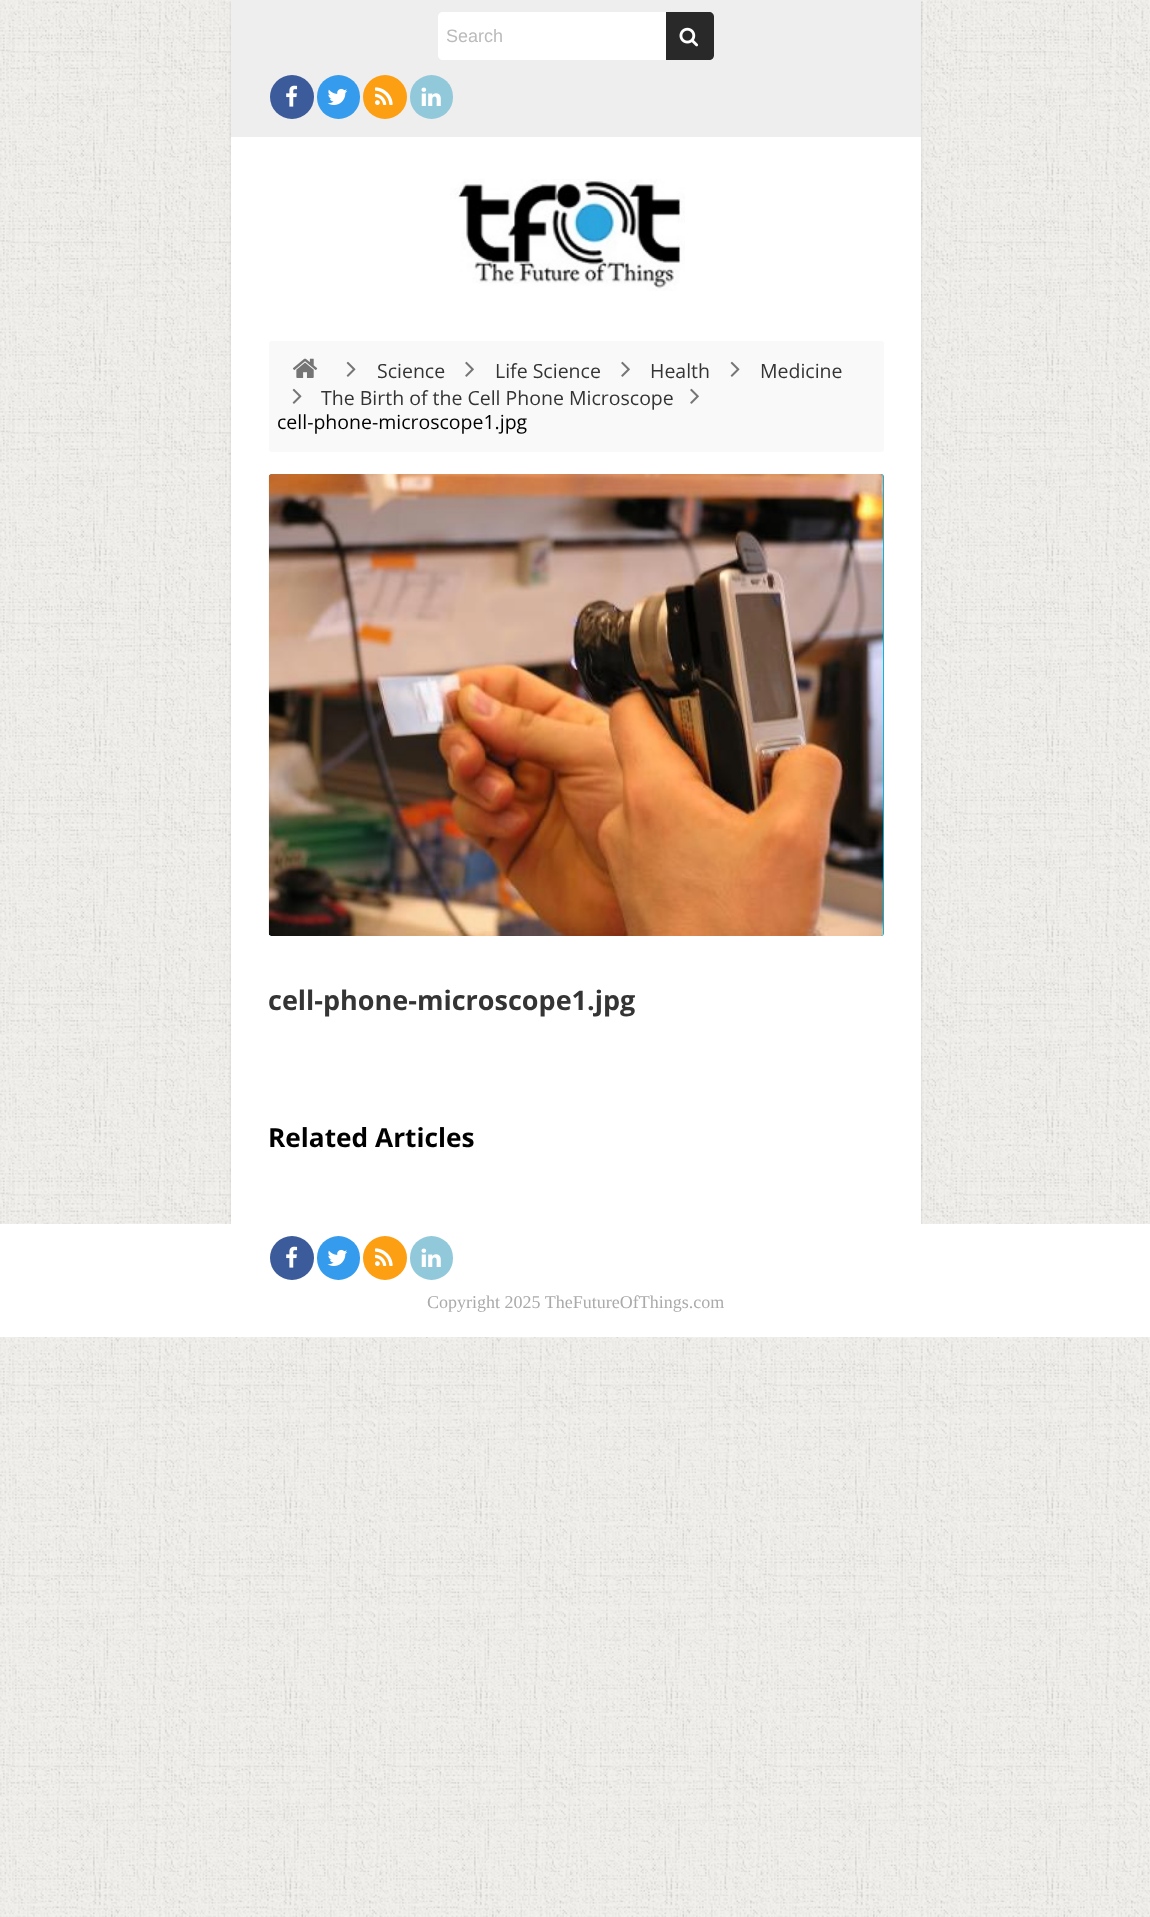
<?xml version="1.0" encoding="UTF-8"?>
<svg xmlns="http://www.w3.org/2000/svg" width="1150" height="1917">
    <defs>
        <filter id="blur1" x="-50%" y="-200%" width="200%" height="500%"><feGaussianBlur stdDeviation="1.5"/></filter>
    </defs>
    <rect width="100%" height="100%" fill="#FFFFFF"/>
    <image x="0" y="0" width="1150" height="1917" href="img_01.png"/>
    <rect x="231" y="2" width="690" height="1224" fill="#000000" fill-opacity="0.15" filter="url(#blur1)"/>
    <rect x="231" y="137" width="690" height="1087" fill="#FFFFFF"/>
    <rect x="231" y="0" width="690" height="137" fill="#EEEEEE"/>
    <path d="M 443 12 H 666 V 60 H 443 C 440 60 438 58 438 55 V 17 C 438 14 440 12 443 12 Z" fill="#FFFFFF"/>
    <text x="446" y="42" font-family="Liberation Sans" font-size="18" fill="#BBBBBB">Search</text>
    <path d="M 666 12 H 709 C 712 12 714 14 714 17 V 55 C 714 58 712 60 709 60 H 666 Z" fill="#29292A"/>
    <image x="679" y="27" width="19" height="20" href="img_02.png"/>
    <circle cx="292" cy="97" r="22" fill="#3C5B9B"/>
    <image x="286" y="85" width="12" height="22" href="img_03.png"/>
    <rect x="317" y="75" width="43" height="44" rx="21.5" fill="#359BED"/>
    <image x="327" y="88" width="21" height="17" href="img_04.png"/>
    <circle cx="385" cy="97" r="22" fill="#FD9F13"/>
    <image x="375" y="87" width="18" height="18" href="img_05.png"/>
    <rect x="410" y="75" width="43" height="44" rx="21.5" fill="#91C9DB"/>
    <image x="421" y="87" width="20" height="19" href="img_06.png"/>
    <image x="450" y="179" width="235" height="112" href="img_07.png"/>
    <rect x="269" y="341" width="615" height="111" rx="3" fill="#F9F9F9"/>
    <image x="292" y="358" width="26" height="20" href="img_08.png"/>
    <image x="346" y="361" width="10" height="16" href="img_09.png"/>
    <text x="377" y="378" font-family="Open Sans" font-size="19.5" fill="#343434">Science</text>
    <image x="465" y="361" width="9" height="16" href="img_10.png"/>
    <text x="495" y="378" font-family="Open Sans" font-size="19.5" fill="#343434">Life Science</text>
    <image x="621" y="361" width="9" height="16" href="img_10.png"/>
    <text x="650" y="378" font-family="Open Sans" font-size="19.5" fill="#343434">Health</text>
    <image x="730" y="361" width="10" height="16" href="img_09.png"/>
    <text x="760" y="378" font-family="Open Sans" font-size="19.5" fill="#343434">Medicine</text>
    <image x="292" y="388" width="10" height="16" href="img_09.png"/>
    <text x="321" y="405" font-family="Open Sans" font-size="19.5" fill="#343434">The Birth of the Cell Phone Microscope</text>
    <image x="690" y="388" width="9" height="16" href="img_10.png"/>
    <text x="277" y="429" font-family="Open Sans" font-size="19.5" fill="#000000">cell-phone-microscope1.jpg</text>
    <rect x="269" y="474" width="615" height="462" rx="3" fill="#00B4DC"/>
    <image x="268" y="474" width="616" height="462" href="img_11.png"/>
    <text x="268" y="1010" font-family="Open Sans" font-size="27" font-weight="700" fill="#343434">cell-phone-microscope1.jpg</text>
    <text x="268" y="1147" font-family="Open Sans" font-size="26.25" font-weight="700" fill="#000000">Related Articles</text>
    <rect x="0" y="1224" width="1150" height="113" fill="#FFFFFF"/>
    <circle cx="292" cy="1258" r="22" fill="#3C5B9B"/>
    <image x="286" y="1246" width="12" height="22" href="img_03.png"/>
    <rect x="317" y="1236" width="43" height="44" rx="21.5" fill="#359BED"/>
    <image x="327" y="1249" width="21" height="17" href="img_04.png"/>
    <circle cx="385" cy="1258" r="22" fill="#FD9F13"/>
    <image x="375" y="1248" width="18" height="18" href="img_05.png"/>
    <rect x="410" y="1236" width="43" height="44" rx="21.5" fill="#91C9DB"/>
    <image x="421" y="1248" width="20" height="19" href="img_06.png"/>
    <text x="427" y="1308" font-family="Liberation Serif" font-size="18" fill="#AAAAAA">Copyright 2025 TheFutureOfThings.com</text>
</svg>
